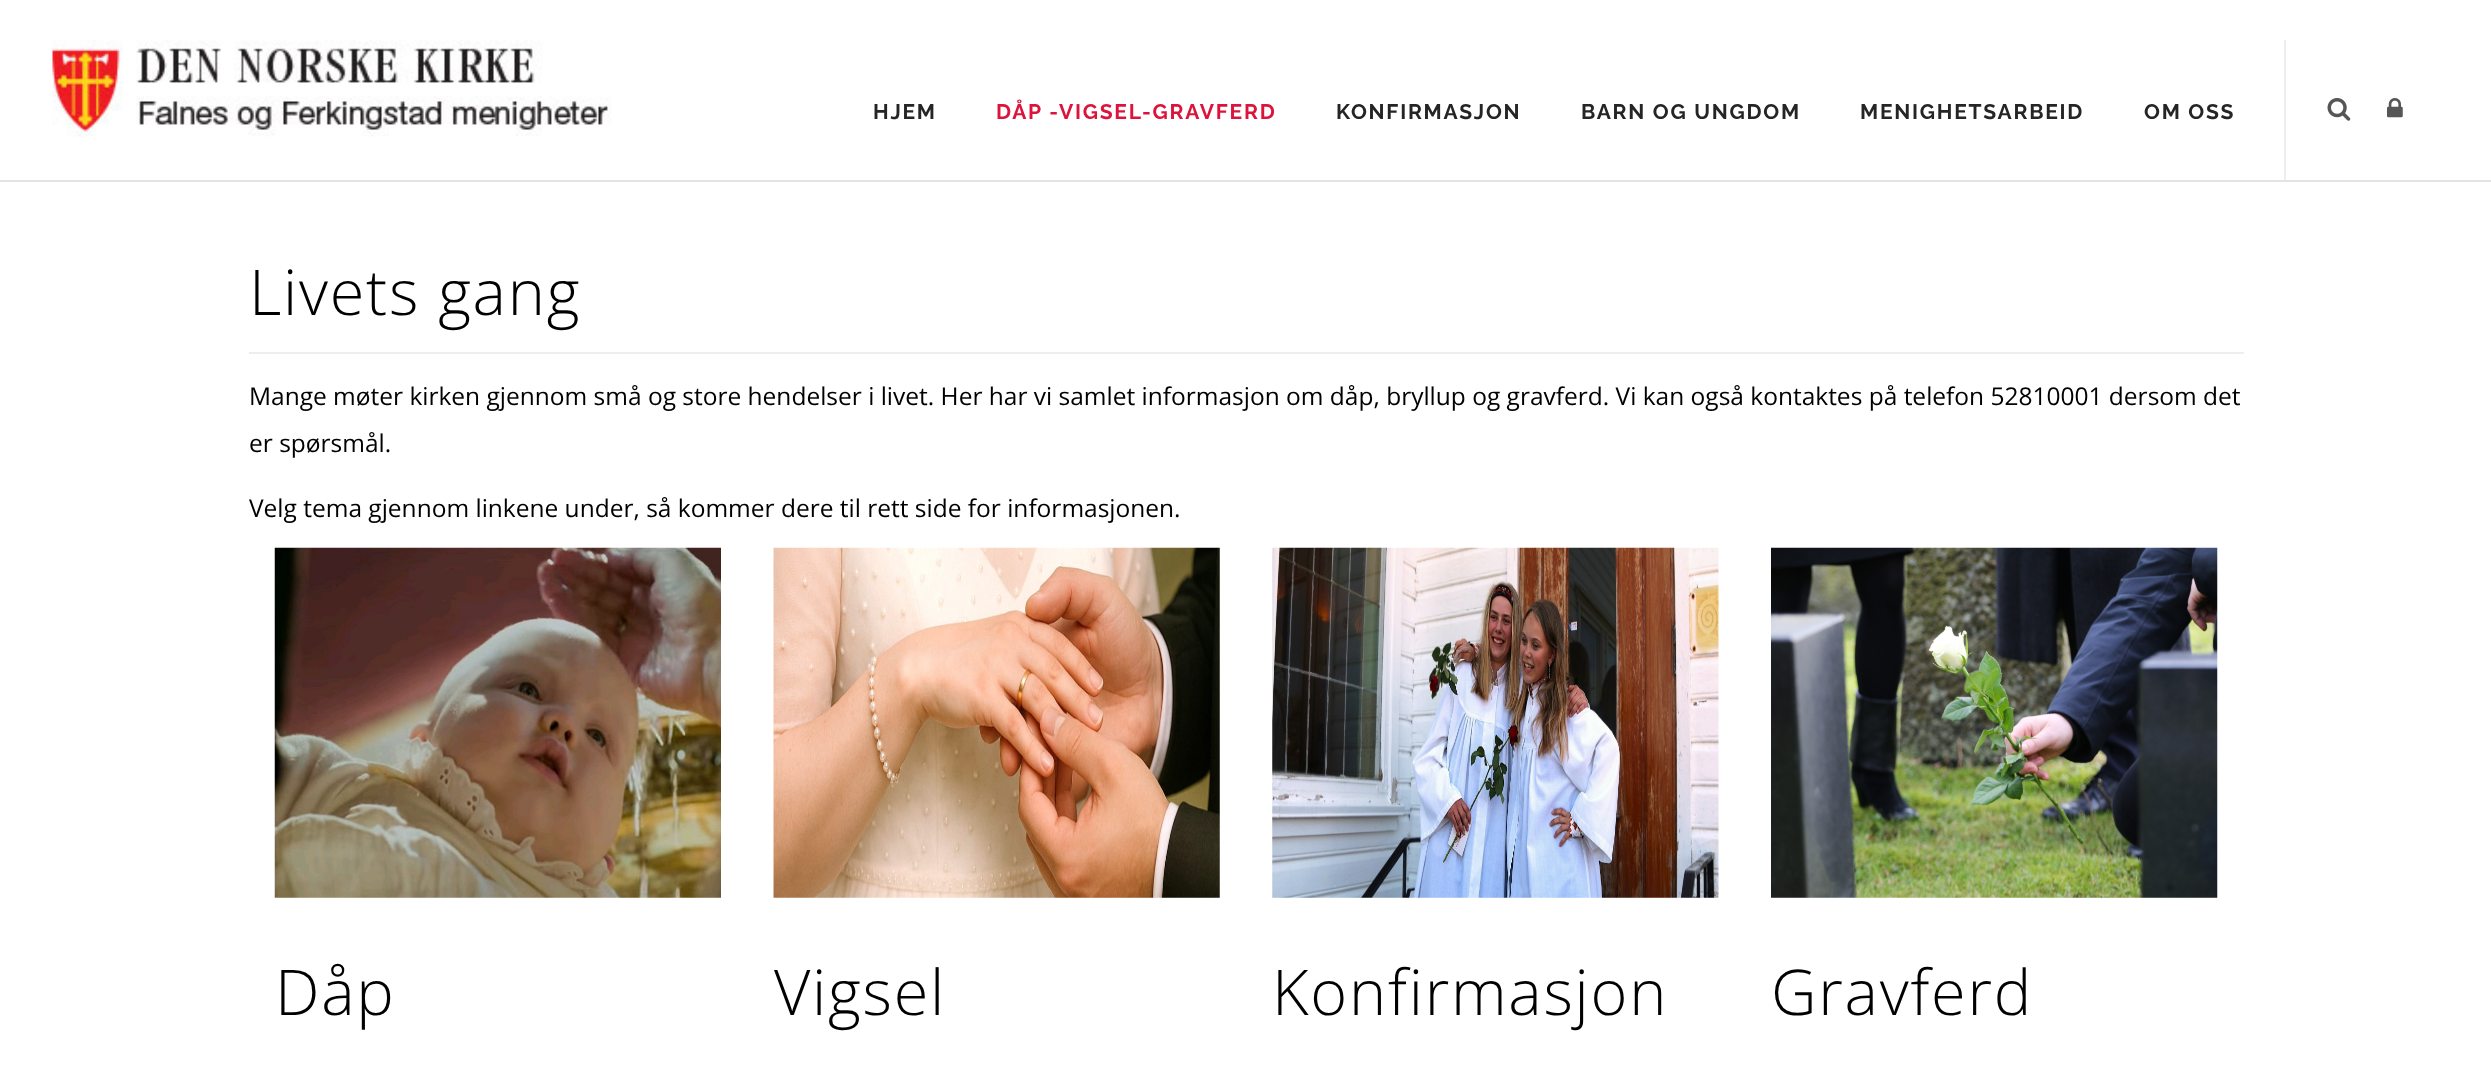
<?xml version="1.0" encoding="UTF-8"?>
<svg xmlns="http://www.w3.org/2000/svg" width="2491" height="1076">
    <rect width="100%" height="100%" fill="#FFFFFF"/>
    <rect x="0" y="180" width="2491" height="2" fill="#E3E3E3"/>
    <image x="52" y="40" width="560" height="97" href="img_01.png"/>
    <text x="873" y="119" font-family="Raleway" font-size="21" font-weight="700" letter-spacing="1.75" fill="#252525">HJEM</text>
    <text x="996" y="119" font-family="Raleway" font-size="21" font-weight="700" letter-spacing="1.75" fill="#DC143C">DÅP -VIGSEL-GRAVFERD</text>
    <text x="1336" y="119" font-family="Raleway" font-size="21" font-weight="700" letter-spacing="1.75" fill="#252525">KONFIRMASJON</text>
    <text x="1581" y="119" font-family="Raleway" font-size="21" font-weight="700" letter-spacing="1.75" fill="#252525">BARN OG UNGDOM</text>
    <text x="1860" y="119" font-family="Raleway" font-size="21" font-weight="700" letter-spacing="1.75" fill="#252525">MENIGHETSARBEID</text>
    <text x="2144" y="119" font-family="Raleway" font-size="21" font-weight="700" letter-spacing="1.75" fill="#252525">OM OSS</text>
    <rect x="2284" y="40" width="2" height="140" fill="#EEEEEE"/>
    <image x="2327" y="98" width="24" height="23" href="img_02.png"/>
    <image x="2387" y="98" width="16" height="20" href="img_03.png"/>
    <text x="249" y="315" font-family="Open Sans" font-size="63" font-weight="300" letter-spacing="1.75" fill="#000000">Livets gang</text>
    <rect x="249" y="352" width="1995" height="2" fill="#EEEEEE"/>
    <text font-family="Open Sans" font-size="24.5" fill="#000000">
        <tspan x="249" y="405">Mange møter kirken gjennom små og store hendelser i livet. Her har vi samlet informasjon om dåp, bryllup og gravferd. Vi kan også kontaktes på telefon 52810001 dersom det</tspan>
        <tspan x="249" y="452">er spørsmål.</tspan>
    </text>
    <text x="249" y="517" font-family="Open Sans" font-size="24.5" fill="#000000">Velg tema gjennom linkene under, så kommer dere til rett side for informasjonen.</text>
    <image x="274" y="547" width="447" height="351" href="img_04.png"/>
    <text x="275" y="1015" font-family="Open Sans" font-size="63" font-weight="300" letter-spacing="1.75" fill="#000000">Dåp</text>
    <image x="773" y="547" width="447" height="351" href="img_05.png"/>
    <text x="774" y="1015" font-family="Open Sans" font-size="63" font-weight="300" letter-spacing="1.75" fill="#000000">Vigsel</text>
    <image x="1272" y="547" width="447" height="351" href="img_06.png"/>
    <text x="1272" y="1015" font-family="Open Sans" font-size="63" font-weight="300" letter-spacing="1.75" fill="#000000">Konfirmasjon</text>
    <image x="1771" y="547" width="447" height="351" href="img_07.png"/>
    <text x="1771" y="1015" font-family="Open Sans" font-size="63" font-weight="300" letter-spacing="1.75" fill="#000000">Gravferd</text>
</svg>
